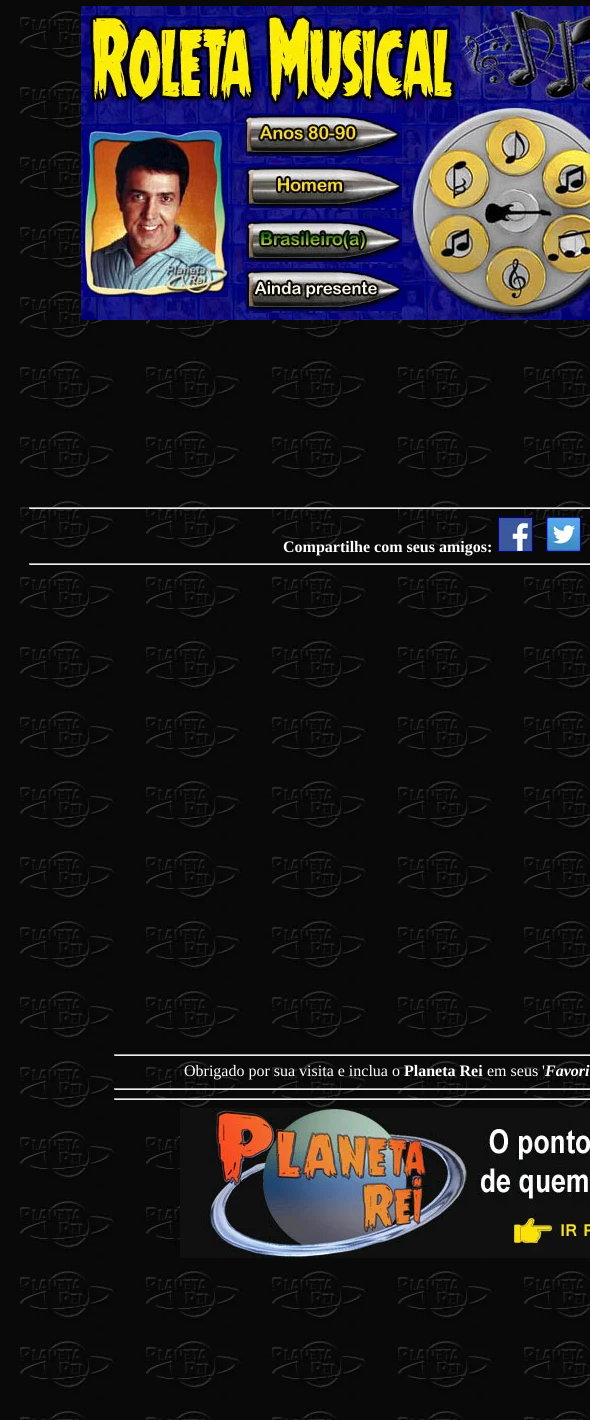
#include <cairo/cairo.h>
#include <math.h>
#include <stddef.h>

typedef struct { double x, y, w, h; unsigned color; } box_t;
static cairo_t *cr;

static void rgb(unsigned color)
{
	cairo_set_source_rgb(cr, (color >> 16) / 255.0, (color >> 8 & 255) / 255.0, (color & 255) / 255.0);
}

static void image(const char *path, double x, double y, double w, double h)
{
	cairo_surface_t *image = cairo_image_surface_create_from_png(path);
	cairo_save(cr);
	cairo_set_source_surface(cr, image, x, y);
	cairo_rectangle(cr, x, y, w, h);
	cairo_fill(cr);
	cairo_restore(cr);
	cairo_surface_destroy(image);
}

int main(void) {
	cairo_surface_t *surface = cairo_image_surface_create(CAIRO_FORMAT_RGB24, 590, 1420);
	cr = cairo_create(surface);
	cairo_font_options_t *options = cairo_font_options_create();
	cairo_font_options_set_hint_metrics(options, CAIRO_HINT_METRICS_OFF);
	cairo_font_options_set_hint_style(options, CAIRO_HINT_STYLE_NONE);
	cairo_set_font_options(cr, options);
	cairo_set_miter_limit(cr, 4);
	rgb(0xffffff);
	cairo_paint(cr);
	image("img/1.png", 0, 0, 590, 1420);
	image("img/2.png", 81, 6, 509, 314);
	{
		static const box_t items[] = {
			{29, 507, 561, 1, 0x9f9f9f},
			{29, 508, 561, 1, 0xeeeeee},
			{29, 507, 1, 2, 0x9f9f9f},
		};
		for (size_t i = 0; i < sizeof items / sizeof *items; i++) {
			rgb(items[i].color);
			cairo_rectangle(cr, items[i].x, items[i].y, items[i].w, items[i].h);
			cairo_fill(cr);
		}
	}
	image("img/3.png", 498, 517, 35, 35);
	image("img/4.png", 546, 517, 35, 35);
	{
		static const box_t items[] = {
			{29, 563, 561, 1, 0x9f9f9f},
			{29, 564, 561, 1, 0xeeeeee},
			{29, 563, 1, 2, 0x9f9f9f},
			{114, 1054, 476, 1, 0x9f9f9f},
			{114, 1055, 476, 1, 0xeeeeee},
			{114, 1054, 1, 2, 0x9f9f9f},
			{114, 1088, 476, 1, 0x9f9f9f},
			{114, 1089, 476, 1, 0xeeeeee},
			{114, 1088, 1, 2, 0x9f9f9f},
			{114, 1098, 476, 1, 0x9f9f9f},
			{114, 1099, 476, 1, 0xeeeeee},
			{114, 1098, 1, 2, 0x9f9f9f},
		};
		for (size_t i = 0; i < sizeof items / sizeof *items; i++) {
			rgb(items[i].color);
			cairo_rectangle(cr, items[i].x, items[i].y, items[i].w, items[i].h);
			cairo_fill(cr);
		}
	}
	image("img/5.png", 180, 1108, 410, 150);
	cairo_select_font_face(cr, "Liberation Serif", CAIRO_FONT_SLANT_NORMAL, CAIRO_FONT_WEIGHT_BOLD);
	cairo_set_font_size(cr, 16);
	rgb(0xffffff);
	cairo_move_to(cr, 283, 552);
	cairo_show_text(cr, "Compartilhe com seus amigos:");
	cairo_select_font_face(cr, "Liberation Serif", CAIRO_FONT_SLANT_NORMAL, CAIRO_FONT_WEIGHT_NORMAL);
	cairo_move_to(cr, 184, 1076);
	cairo_show_text(cr, "Obrigado por sua visita e inclua o");
	cairo_select_font_face(cr, "Liberation Serif", CAIRO_FONT_SLANT_NORMAL, CAIRO_FONT_WEIGHT_BOLD);
	cairo_move_to(cr, 404, 1076);
	cairo_show_text(cr, "Planeta Rei");
	cairo_select_font_face(cr, "Liberation Serif", CAIRO_FONT_SLANT_NORMAL, CAIRO_FONT_WEIGHT_NORMAL);
	cairo_move_to(cr, 487, 1076);
	cairo_show_text(cr, "em seus '");
	cairo_select_font_face(cr, "Liberation Serif", CAIRO_FONT_SLANT_ITALIC, CAIRO_FONT_WEIGHT_BOLD);
	cairo_move_to(cr, 545, 1076);
	cairo_show_text(cr, "Favori");
	cairo_surface_write_to_png(surface, "page.png");
	cairo_font_options_destroy(options);
	cairo_destroy(cr);
	cairo_surface_destroy(surface);
	return 0;
}
